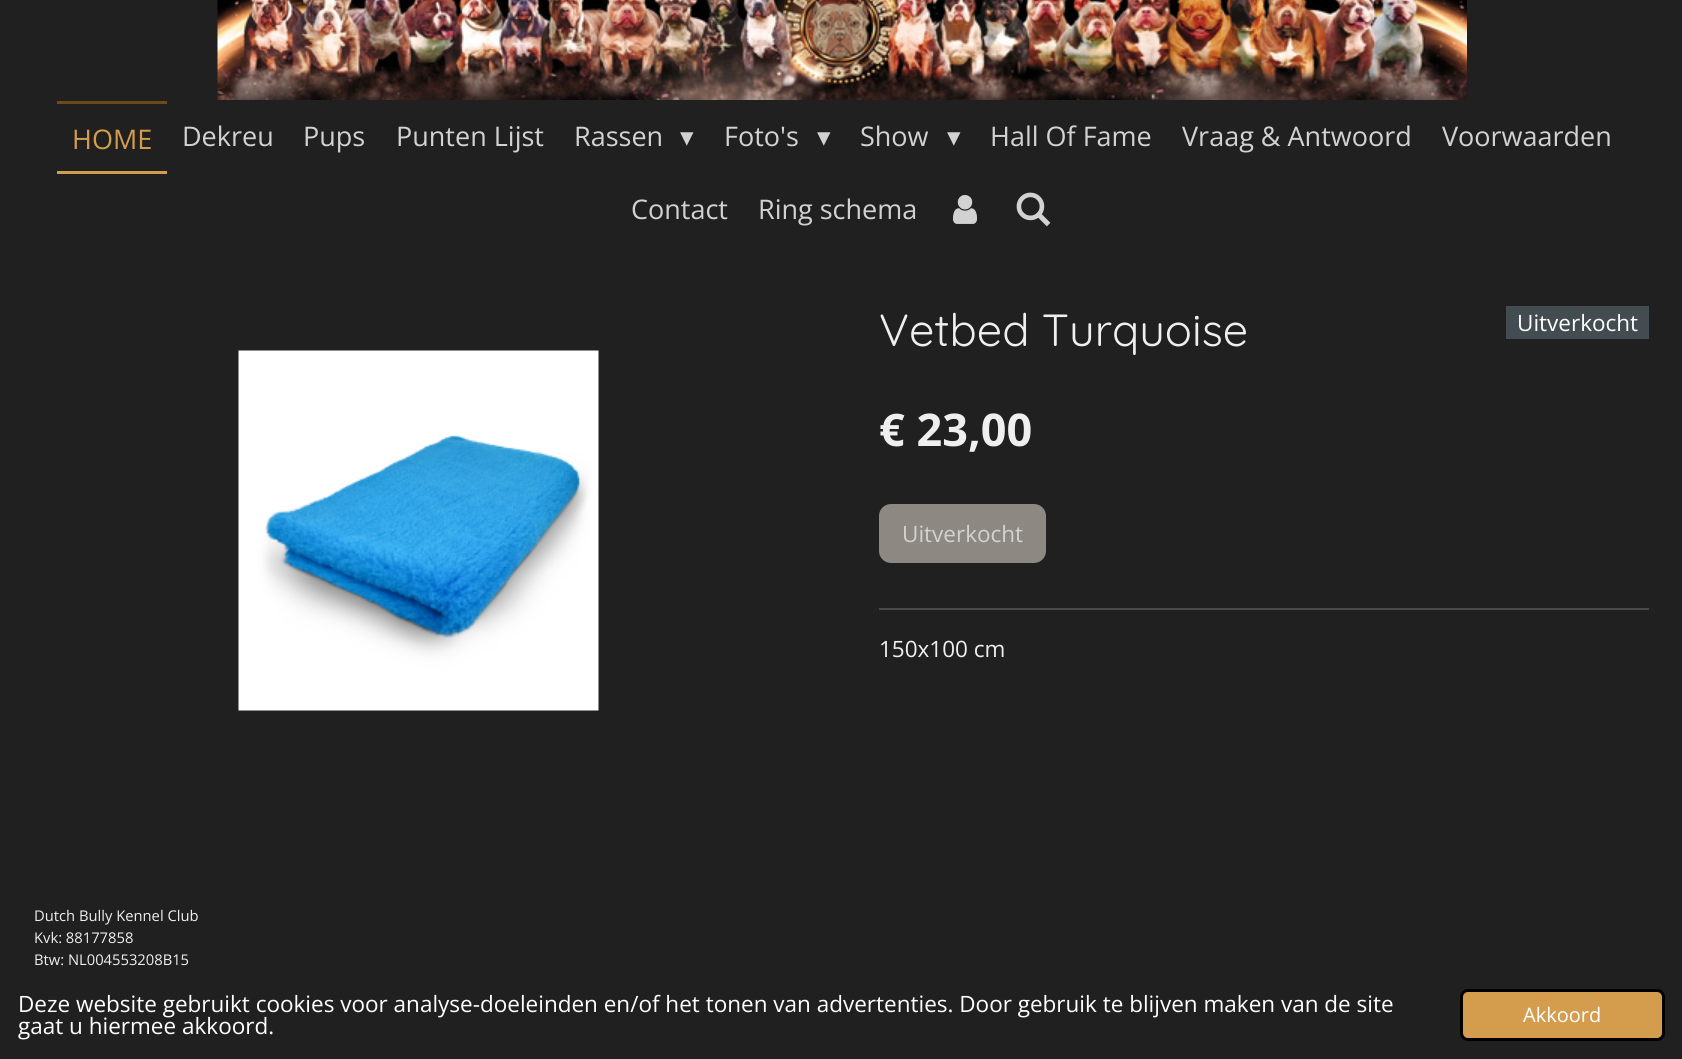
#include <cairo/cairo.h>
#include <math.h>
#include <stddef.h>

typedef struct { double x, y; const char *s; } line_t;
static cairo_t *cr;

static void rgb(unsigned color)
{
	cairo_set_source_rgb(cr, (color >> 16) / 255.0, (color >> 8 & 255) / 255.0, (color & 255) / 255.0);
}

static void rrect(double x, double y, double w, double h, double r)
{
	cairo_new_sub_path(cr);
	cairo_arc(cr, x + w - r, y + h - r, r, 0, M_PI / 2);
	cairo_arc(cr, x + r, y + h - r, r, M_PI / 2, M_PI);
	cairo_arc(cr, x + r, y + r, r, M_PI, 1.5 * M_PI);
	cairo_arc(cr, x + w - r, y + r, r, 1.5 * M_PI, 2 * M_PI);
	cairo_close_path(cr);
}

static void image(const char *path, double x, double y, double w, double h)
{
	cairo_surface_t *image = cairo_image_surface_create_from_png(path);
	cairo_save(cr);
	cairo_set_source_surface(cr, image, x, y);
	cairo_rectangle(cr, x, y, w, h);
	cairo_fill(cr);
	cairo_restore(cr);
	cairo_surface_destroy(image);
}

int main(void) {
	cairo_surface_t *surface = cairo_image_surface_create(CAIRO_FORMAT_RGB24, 1682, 1059);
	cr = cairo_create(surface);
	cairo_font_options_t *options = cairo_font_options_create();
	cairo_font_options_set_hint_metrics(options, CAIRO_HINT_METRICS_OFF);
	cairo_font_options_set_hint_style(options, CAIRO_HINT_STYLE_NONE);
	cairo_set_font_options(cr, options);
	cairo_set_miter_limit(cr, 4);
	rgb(0x202020);
	cairo_paint(cr);
	image("img/1.png", 217, 0, 1250, 100);
	rgb(0x6c4b1b);
	cairo_rectangle(cr, 57, 101, 110, 3);
	cairo_fill(cr);
	rgb(0xd39d4d);
	cairo_rectangle(cr, 57, 171, 110, 3);
	cairo_fill(cr);
	image("img/2.png", 952, 195, 26, 29);
	image("img/3.png", 1016, 192, 35, 35);
	rgb(0x424c51);
	cairo_rectangle(cr, 1506, 306, 143, 33);
	cairo_fill(cr);
	image("img/4.png", 238, 350, 361, 361);
	rgb(0x8d8882);
	rrect(879, 504, 167, 59, 12);
	cairo_fill(cr);
	rgb(0x494949);
	cairo_rectangle(cr, 879, 608, 770, 2);
	cairo_fill(cr);
	rgb(0xd39d4d);
	rrect(1461.5, 990.5, 202, 49, 6.5);
	cairo_fill_preserve(cr);
	rgb(0x000000);
	cairo_set_line_width(cr, 3);
	cairo_stroke(cr);
	cairo_select_font_face(cr, "Open Sans", CAIRO_FONT_SLANT_NORMAL, CAIRO_FONT_WEIGHT_NORMAL);
	cairo_set_font_size(cr, 27);
	rgb(0xd39d4d);
	cairo_move_to(cr, 72, 149);
	cairo_show_text(cr, "HOME");
	rgb(0xd2d2d2);
	{
		static const line_t items[] = {
			{182, 146, "Dekreu"},
			{303, 146, "Pups"},
			{396, 146, "Punten Lijst"},
			{574, 146, "Rassen"},
		};
		for (size_t i = 0; i < sizeof items / sizeof *items; i++) {
			cairo_move_to(cr, items[i].x, items[i].y);
			cairo_show_text(cr, items[i].s);
		}
	}
	cairo_select_font_face(cr, "DejaVu Sans", CAIRO_FONT_SLANT_NORMAL, CAIRO_FONT_WEIGHT_NORMAL);
	cairo_move_to(cr, 680, 146);
	cairo_show_text(cr, "▾");
	cairo_select_font_face(cr, "Open Sans", CAIRO_FONT_SLANT_NORMAL, CAIRO_FONT_WEIGHT_NORMAL);
	cairo_move_to(cr, 724, 146);
	cairo_show_text(cr, "Foto's");
	cairo_select_font_face(cr, "DejaVu Sans", CAIRO_FONT_SLANT_NORMAL, CAIRO_FONT_WEIGHT_NORMAL);
	cairo_move_to(cr, 817, 146);
	cairo_show_text(cr, "▾");
	cairo_select_font_face(cr, "Open Sans", CAIRO_FONT_SLANT_NORMAL, CAIRO_FONT_WEIGHT_NORMAL);
	cairo_move_to(cr, 860, 146);
	cairo_show_text(cr, "Show");
	cairo_select_font_face(cr, "DejaVu Sans", CAIRO_FONT_SLANT_NORMAL, CAIRO_FONT_WEIGHT_NORMAL);
	cairo_move_to(cr, 947, 146);
	cairo_show_text(cr, "▾");
	cairo_select_font_face(cr, "Open Sans", CAIRO_FONT_SLANT_NORMAL, CAIRO_FONT_WEIGHT_NORMAL);
	{
		static const line_t items[] = {
			{990, 146, "Hall Of Fame"},
			{1182, 146, "Vraag & Antwoord"},
			{1442, 146, "Voorwaarden"},
			{631, 219, "Contact"},
			{758, 219, "Ring schema"},
		};
		for (size_t i = 0; i < sizeof items / sizeof *items; i++) {
			cairo_move_to(cr, items[i].x, items[i].y);
			cairo_show_text(cr, items[i].s);
		}
	}
	cairo_select_font_face(cr, "Quicksand", CAIRO_FONT_SLANT_NORMAL, CAIRO_FONT_WEIGHT_NORMAL);
	cairo_set_font_size(cr, 45);
	rgb(0xefefef);
	cairo_move_to(cr, 879, 346);
	cairo_show_text(cr, "Vetbed Turquoise");
	cairo_select_font_face(cr, "Open Sans", CAIRO_FONT_SLANT_NORMAL, CAIRO_FONT_WEIGHT_NORMAL);
	cairo_set_font_size(cr, 22.5);
	rgb(0xffffff);
	cairo_move_to(cr, 1517, 331);
	cairo_show_text(cr, "Uitverkocht");
	cairo_select_font_face(cr, "Open Sans", CAIRO_FONT_SLANT_NORMAL, CAIRO_FONT_WEIGHT_BOLD);
	cairo_set_font_size(cr, 45);
	rgb(0xefefef);
	cairo_move_to(cr, 879, 446);
	cairo_show_text(cr, "€ 23,00");
	cairo_select_font_face(cr, "Open Sans", CAIRO_FONT_SLANT_NORMAL, CAIRO_FONT_WEIGHT_NORMAL);
	cairo_set_font_size(cr, 22.5);
	rgb(0xd2d2d2);
	cairo_move_to(cr, 902, 542);
	cairo_show_text(cr, "Uitverkocht");
	rgb(0xefefef);
	cairo_move_to(cr, 879, 657);
	cairo_show_text(cr, "150x100 cm");
	cairo_set_font_size(cr, 14.75);
	{
		static const line_t items[] = {
			{34, 921, "Dutch Bully Kennel Club"},
			{34, 943, "Kvk: 88177858"},
			{34, 965, "Btw: NL004553208B15"},
		};
		for (size_t i = 0; i < sizeof items / sizeof *items; i++) {
			cairo_move_to(cr, items[i].x, items[i].y);
			cairo_show_text(cr, items[i].s);
		}
	}
	cairo_set_font_size(cr, 22.5);
	rgb(0xffffff);
	cairo_move_to(cr, 18, 1012);
	cairo_show_text(cr, "Deze website gebruikt cookies voor analyse-doeleinden en/of het tonen van advertenties. Door gebruik te blijven maken van de site");
	cairo_move_to(cr, 18, 1034);
	cairo_show_text(cr, "gaat u hiermee akkoord.");
	cairo_set_font_size(cr, 20);
	cairo_move_to(cr, 1523, 1022);
	cairo_show_text(cr, "Akkoord");
	cairo_surface_write_to_png(surface, "page.png");
	cairo_font_options_destroy(options);
	cairo_destroy(cr);
	cairo_surface_destroy(surface);
	return 0;
}
